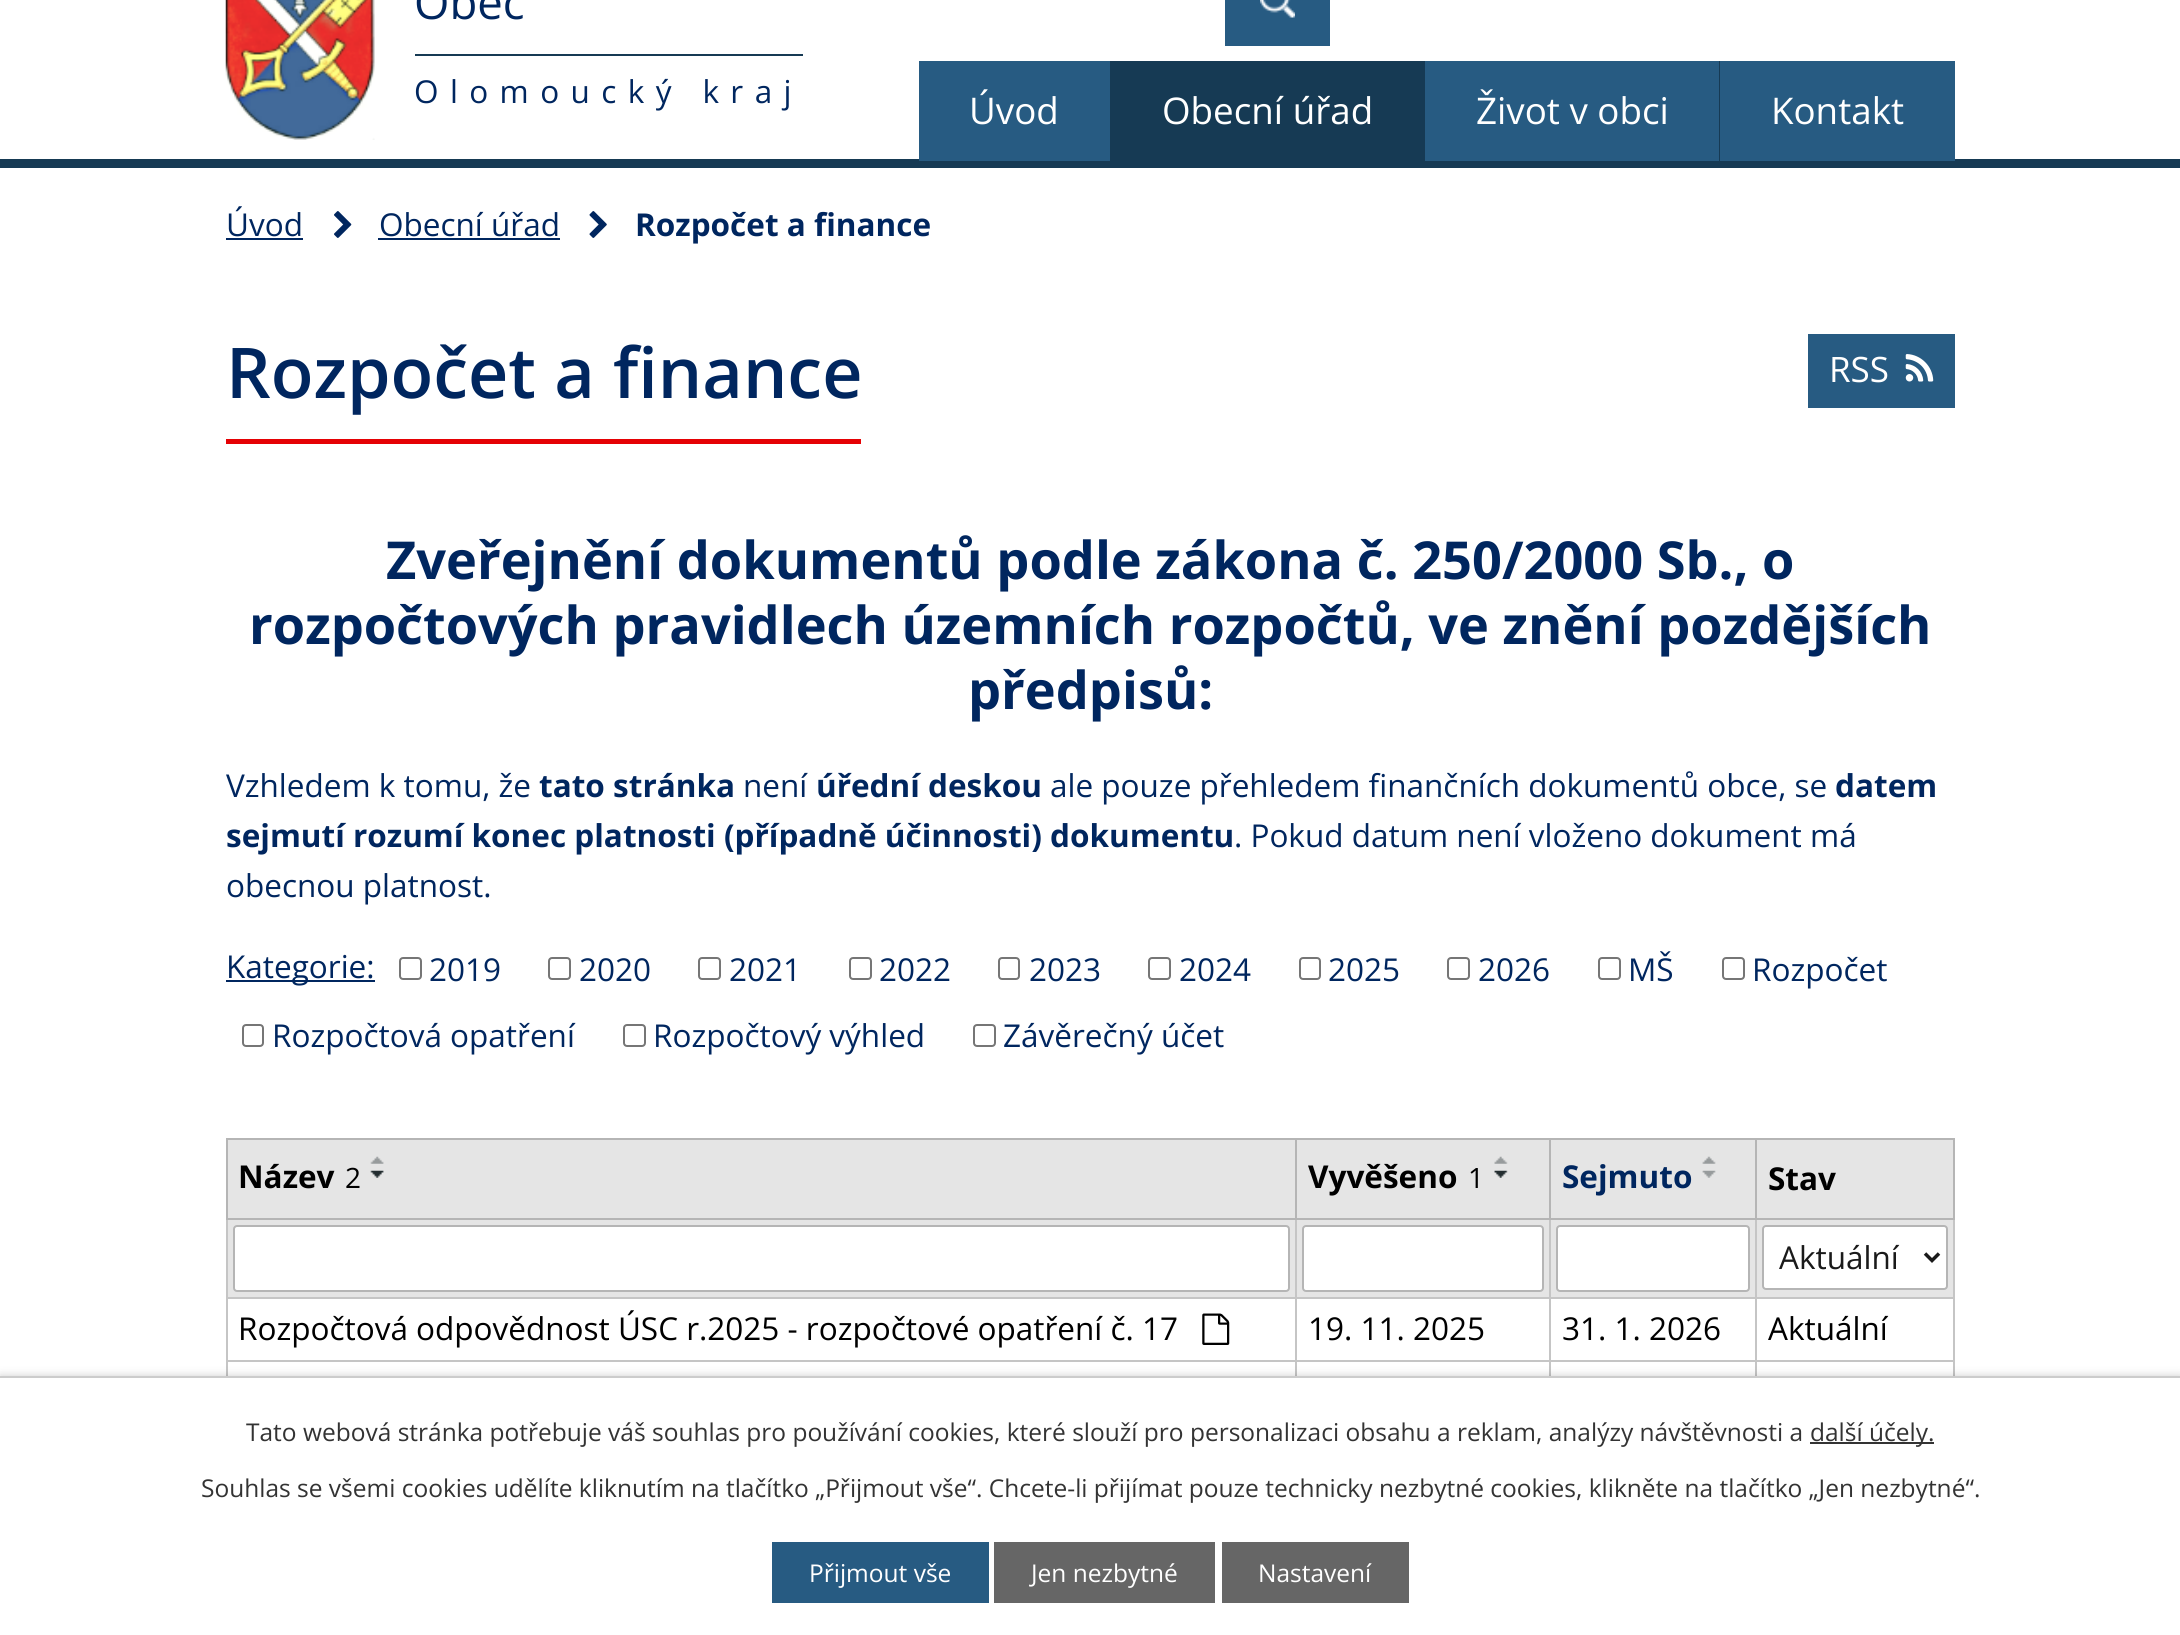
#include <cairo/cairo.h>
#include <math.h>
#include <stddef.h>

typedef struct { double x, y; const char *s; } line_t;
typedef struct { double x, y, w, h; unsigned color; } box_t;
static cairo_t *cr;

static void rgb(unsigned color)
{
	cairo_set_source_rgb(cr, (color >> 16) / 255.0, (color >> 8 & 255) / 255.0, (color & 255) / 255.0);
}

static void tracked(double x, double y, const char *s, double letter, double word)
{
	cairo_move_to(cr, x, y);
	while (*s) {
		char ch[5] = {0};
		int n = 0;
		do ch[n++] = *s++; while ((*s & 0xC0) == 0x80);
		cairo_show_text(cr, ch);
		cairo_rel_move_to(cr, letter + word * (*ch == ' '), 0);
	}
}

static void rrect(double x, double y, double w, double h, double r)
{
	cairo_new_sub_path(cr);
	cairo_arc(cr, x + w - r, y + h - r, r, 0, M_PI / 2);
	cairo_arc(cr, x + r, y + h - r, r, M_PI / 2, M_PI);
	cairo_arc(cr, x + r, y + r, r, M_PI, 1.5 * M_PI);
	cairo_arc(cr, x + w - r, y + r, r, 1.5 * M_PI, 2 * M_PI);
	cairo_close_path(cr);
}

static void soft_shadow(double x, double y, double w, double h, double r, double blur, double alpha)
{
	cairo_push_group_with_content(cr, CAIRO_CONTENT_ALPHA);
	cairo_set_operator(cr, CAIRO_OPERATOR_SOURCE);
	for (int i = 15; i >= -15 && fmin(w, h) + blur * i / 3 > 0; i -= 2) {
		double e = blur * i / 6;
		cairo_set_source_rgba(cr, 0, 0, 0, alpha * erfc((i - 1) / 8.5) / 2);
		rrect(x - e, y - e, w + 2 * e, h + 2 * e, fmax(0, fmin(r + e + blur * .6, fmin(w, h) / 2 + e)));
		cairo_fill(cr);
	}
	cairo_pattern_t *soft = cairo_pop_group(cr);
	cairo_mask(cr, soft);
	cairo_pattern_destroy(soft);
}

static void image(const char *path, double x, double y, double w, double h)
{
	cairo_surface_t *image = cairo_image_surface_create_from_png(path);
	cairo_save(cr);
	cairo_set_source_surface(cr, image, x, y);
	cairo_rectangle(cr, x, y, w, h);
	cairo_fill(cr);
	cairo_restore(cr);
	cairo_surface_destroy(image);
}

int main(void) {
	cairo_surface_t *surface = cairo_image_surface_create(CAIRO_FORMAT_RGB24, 2180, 1635);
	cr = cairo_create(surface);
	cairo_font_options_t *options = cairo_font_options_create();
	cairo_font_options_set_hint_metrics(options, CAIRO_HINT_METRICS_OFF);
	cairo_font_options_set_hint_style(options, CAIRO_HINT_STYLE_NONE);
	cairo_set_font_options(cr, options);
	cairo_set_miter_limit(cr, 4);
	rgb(0xffffff);
	cairo_paint(cr);
	rgb(0x163a54);
	cairo_rectangle(cr, 0, 159, 2180, 9);
	cairo_fill(cr);
	image("img/1.png", 225, 0, 150, 140);
	cairo_rectangle(cr, 415, 54, 388, 2);
	cairo_fill(cr);
	rgb(0x275b82);
	cairo_rectangle(cr, 1225, 0, 105, 46);
	cairo_fill(cr);
	image("img/2.png", 1260, 0, 35, 18);
	{
		static const box_t items[] = {
			{919, 61, 191, 100, 0x275b82},
			{1110, 61, 1, 100, 0x163a54},
			{1111, 61, 312, 98, 0x163a54},
			{1423, 61, 2, 100, 0x163a54},
			{1425, 61, 294, 100, 0x275b82},
			{1719, 61, 1, 100, 0x163a54},
			{1720, 61, 235, 100, 0x275b82},
			{226, 238, 77, 2, 0x00265f},
		};
		for (size_t i = 0; i < sizeof items / sizeof *items; i++) {
			rgb(items[i].color);
			cairo_rectangle(cr, items[i].x, items[i].y, items[i].w, items[i].h);
			cairo_fill(cr);
		}
	}
	image("img/3.png", 334, 211, 18, 27);
	cairo_rectangle(cr, 378, 238, 182, 2);
	cairo_fill(cr);
	image("img/4.png", 589, 211, 18, 27);
	rgb(0xe50104);
	cairo_rectangle(cr, 226, 439, 635, 5);
	cairo_fill(cr);
	rgb(0x275b82);
	cairo_rectangle(cr, 1808, 334, 147, 74);
	cairo_fill(cr);
	image("img/5.png", 1905, 354, 29, 28);
	rgb(0x00265f);
	cairo_rectangle(cr, 226, 980, 149, 2);
	cairo_fill(cr);
	rrect(400, 958, 21, 21, 3);
	rgb(0x767676);
	cairo_stroke(cr);
	rrect(549, 958, 21, 21, 3);
	cairo_stroke(cr);
	rrect(699, 958, 21, 21, 3);
	cairo_stroke(cr);
	rrect(850, 958, 21, 21, 3);
	cairo_stroke(cr);
	rrect(999, 958, 20, 21, 3);
	cairo_stroke(cr);
	rrect(1149, 958, 21, 21, 3);
	cairo_stroke(cr);
	rrect(1300, 958, 20, 21, 3);
	cairo_stroke(cr);
	rrect(1448, 958, 21, 21, 3);
	cairo_stroke(cr);
	rrect(1599, 958, 21, 21, 3);
	cairo_stroke(cr);
	rrect(1723, 958, 21, 21, 3);
	cairo_stroke(cr);
	rrect(243, 1025, 20, 21, 3);
	cairo_stroke(cr);
	rrect(624, 1025, 21, 21, 3);
	cairo_stroke(cr);
	rrect(974, 1025, 21, 21, 3);
	cairo_stroke(cr);
	{
		static const box_t items[] = {
			{228, 1140, 1067, 78, 0xe5e5e5},
			{1755, 1138, 200, 2, 0xb5b5b5},
			{1755, 1297, 200, 2, 0xc5c5c5},
			{1755, 1360, 200, 2, 0xc5c5c5},
			{1953, 1360, 2, 16, 0xc5c5c5},
			{1953, 1218, 2, 144, 0xc5c5c5},
			{1953, 1138, 2, 82, 0xb5b5b5},
			{228, 1220, 1725, 77, 0xe5e5e5},
			{1755, 1360, 2, 16, 0xc5c5c5},
			{1549, 1360, 208, 2, 0xc5c5c5},
			{1755, 1297, 2, 65, 0xc5c5c5},
			{1549, 1297, 208, 2, 0xc5c5c5},
			{1755, 1218, 2, 81, 0xc5c5c5},
			{1755, 1218, 200, 2, 0xb5b5b5},
			{1755, 1138, 2, 82, 0xb5b5b5},
			{1549, 1138, 208, 2, 0xb5b5b5},
			{1549, 1360, 2, 16, 0xc5c5c5},
			{1295, 1360, 256, 2, 0xc5c5c5},
			{1549, 1297, 2, 65, 0xc5c5c5},
			{1295, 1297, 256, 2, 0xc5c5c5},
			{1549, 1218, 2, 81, 0xc5c5c5},
			{1549, 1218, 208, 2, 0xb5b5b5},
			{1549, 1138, 2, 82, 0xb5b5b5},
			{1295, 1138, 256, 2, 0xb5b5b5},
			{1295, 1360, 2, 16, 0xc5c5c5},
			{226, 1360, 1071, 2, 0xc5c5c5},
			{1295, 1297, 2, 65, 0xc5c5c5},
			{226, 1297, 1071, 2, 0xc5c5c5},
			{1295, 1218, 2, 81, 0xc5c5c5},
			{1295, 1218, 256, 2, 0xb5b5b5},
			{1295, 1138, 2, 82, 0xb5b5b5},
			{226, 1138, 1071, 2, 0xb5b5b5},
			{226, 1360, 2, 16, 0xc5c5c5},
			{226, 1218, 2, 144, 0xc5c5c5},
			{226, 1218, 1071, 2, 0xb5b5b5},
			{226, 1138, 2, 82, 0xb5b5b5},
		};
		for (size_t i = 0; i < sizeof items / sizeof *items; i++) {
			rgb(items[i].color);
			cairo_rectangle(cr, items[i].x, items[i].y, items[i].w, items[i].h);
			cairo_fill(cr);
		}
	}
	image("img/6.png", 370, 1156, 14, 8);
	image("img/7.png", 370, 1170, 14, 8);
	rgb(0xe5e5e5);
	cairo_rectangle(cr, 1297, 1140, 252, 78);
	cairo_fill(cr);
	image("img/8.png", 1494, 1156, 14, 8);
	image("img/9.png", 1494, 1170, 14, 8);
	cairo_rectangle(cr, 1551, 1140, 204, 78);
	cairo_fill(cr);
	image("img/10.png", 1702, 1156, 14, 8);
	image("img/11.png", 1702, 1170, 14, 8);
	cairo_rectangle(cr, 1757, 1140, 196, 78);
	cairo_fill(cr);
	rgb(0xffffff);
	rrect(234, 1226, 1055, 65, 3);
	cairo_fill_preserve(cr);
	rgb(0xb5b5b5);
	cairo_stroke(cr);
	rgb(0xffffff);
	rrect(1303, 1226, 240, 65, 3);
	cairo_fill_preserve(cr);
	rgb(0xb5b5b5);
	cairo_stroke(cr);
	rgb(0xffffff);
	rrect(1557, 1226, 192, 65, 3);
	cairo_fill_preserve(cr);
	rgb(0xb5b5b5);
	cairo_stroke(cr);
	rgb(0xffffff);
	rrect(1763, 1226, 184, 63, 3);
	cairo_fill_preserve(cr);
	rgb(0xb5b5b5);
	cairo_stroke(cr);
	cairo_new_path(cr);
	cairo_move_to(cr, 1925, 1253.5);
	cairo_line_to(cr, 1932, 1260.5);
	cairo_line_to(cr, 1939, 1253.5);
	rgb(0x1a1a1a);
	cairo_set_line_width(cr, 3.5);
	cairo_stroke(cr);
	image("img/12.png", 1202, 1313, 28, 32);
	rgb(0x000000);
	soft_shadow(0, 1376, 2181, 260, 0, 4.5, 0.2);
	{
		static const box_t items[] = {
			{0, 1378, 2180, 257, 0xffffff},
			{0, 1376, 2180, 2, 0xcccccc},
			{1810, 1442, 124, 2, 0x333333},
			{772, 1542, 217, 61, 0x275b82},
			{994, 1542, 221, 61, 0x666666},
			{1222, 1542, 187, 61, 0x666666},
		};
		for (size_t i = 0; i < sizeof items / sizeof *items; i++) {
			rgb(items[i].color);
			cairo_rectangle(cr, items[i].x, items[i].y, items[i].w, items[i].h);
			cairo_fill(cr);
		}
	}
	cairo_select_font_face(cr, "Open Sans", CAIRO_FONT_SLANT_NORMAL, CAIRO_FONT_WEIGHT_NORMAL);
	cairo_set_font_size(cr, 45.5);
	rgb(0x00265f);
	cairo_move_to(cr, 414, 19);
	cairo_show_text(cr, "Obec");
	cairo_set_font_size(cr, 31.5);
	tracked(414, 103, "Olomoucký kraj", 11.4, 0);
	cairo_set_font_size(cr, 36.75);
	rgb(0xffffff);
	{
		static const line_t items[] = {
			{969, 124, "Úvod"},
			{1162, 124, "Obecní úřad"},
			{1476, 124, "Život v obci"},
			{1771, 124, "Kontakt"},
		};
		for (size_t i = 0; i < sizeof items / sizeof *items; i++) {
			cairo_move_to(cr, items[i].x, items[i].y);
			cairo_show_text(cr, items[i].s);
		}
	}
	cairo_set_font_size(cr, 31.5);
	rgb(0x00265f);
	cairo_move_to(cr, 226, 236);
	cairo_show_text(cr, "Úvod");
	cairo_move_to(cr, 379, 236);
	cairo_show_text(cr, "Obecní úřad");
	cairo_select_font_face(cr, "Open Sans", CAIRO_FONT_SLANT_NORMAL, CAIRO_FONT_WEIGHT_BOLD);
	cairo_move_to(cr, 635, 236);
	cairo_show_text(cr, "Rozpočet a finance");
	cairo_select_font_face(cr, "Open Sans SemiBold", CAIRO_FONT_SLANT_NORMAL, CAIRO_FONT_WEIGHT_NORMAL);
	cairo_set_font_size(cr, 70);
	cairo_move_to(cr, 226, 398);
	cairo_show_text(cr, "Rozpočet a finance");
	cairo_select_font_face(cr, "Open Sans", CAIRO_FONT_SLANT_NORMAL, CAIRO_FONT_WEIGHT_NORMAL);
	cairo_set_font_size(cr, 35);
	rgb(0xffffff);
	cairo_move_to(cr, 1829, 382);
	cairo_show_text(cr, "RSS");
	cairo_select_font_face(cr, "Open Sans", CAIRO_FONT_SLANT_NORMAL, CAIRO_FONT_WEIGHT_BOLD);
	cairo_set_font_size(cr, 52.3);
	rgb(0x00265f);
	{
		static const line_t items[] = {
			{386, 579, "Zveřejnění dokumentů podle zákona č. 250/2000 Sb., o"},
			{249, 644, "rozpočtových pravidlech územních rozpočtů, ve znění pozdějších"},
			{968, 709, "předpisů:"},
		};
		for (size_t i = 0; i < sizeof items / sizeof *items; i++) {
			cairo_move_to(cr, items[i].x, items[i].y);
			cairo_show_text(cr, items[i].s);
		}
	}
	cairo_select_font_face(cr, "Open Sans", CAIRO_FONT_SLANT_NORMAL, CAIRO_FONT_WEIGHT_NORMAL);
	cairo_set_font_size(cr, 31.5);
	cairo_move_to(cr, 226, 797);
	cairo_show_text(cr, "Vzhledem k tomu, že");
	cairo_select_font_face(cr, "Open Sans", CAIRO_FONT_SLANT_NORMAL, CAIRO_FONT_WEIGHT_BOLD);
	cairo_move_to(cr, 539, 797);
	cairo_show_text(cr, "tato stránka");
	cairo_select_font_face(cr, "Open Sans", CAIRO_FONT_SLANT_NORMAL, CAIRO_FONT_WEIGHT_NORMAL);
	cairo_move_to(cr, 743, 797);
	cairo_show_text(cr, "není");
	cairo_select_font_face(cr, "Open Sans", CAIRO_FONT_SLANT_NORMAL, CAIRO_FONT_WEIGHT_BOLD);
	cairo_move_to(cr, 816, 797);
	cairo_show_text(cr, "úřední deskou");
	cairo_select_font_face(cr, "Open Sans", CAIRO_FONT_SLANT_NORMAL, CAIRO_FONT_WEIGHT_NORMAL);
	cairo_move_to(cr, 1050, 797);
	cairo_show_text(cr, "ale pouze přehledem finančních dokumentů obce, se");
	cairo_select_font_face(cr, "Open Sans", CAIRO_FONT_SLANT_NORMAL, CAIRO_FONT_WEIGHT_BOLD);
	cairo_move_to(cr, 1835, 797);
	cairo_show_text(cr, "datem");
	cairo_move_to(cr, 226, 847);
	cairo_show_text(cr, "sejmutí rozumí konec platnosti (případně účinnosti) dokumentu");
	cairo_select_font_face(cr, "Open Sans", CAIRO_FONT_SLANT_NORMAL, CAIRO_FONT_WEIGHT_NORMAL);
	{
		static const line_t items[] = {
			{1234, 847, ". Pokud datum není vloženo dokument má"},
			{226, 897, "obecnou platnost."},
			{226, 978, "Kategorie:"},
			{429, 981, "2019"},
			{579, 981, "2020"},
			{729, 981, "2021"},
			{879, 981, "2022"},
			{1029, 981, "2023"},
			{1179, 981, "2024"},
			{1328, 981, "2025"},
			{1478, 981, "2026"},
			{1628, 981, "MŠ"},
			{1752, 981, "Rozpočet"},
			{272, 1047, "Rozpočtová opatření"},
			{653, 1047, "Rozpočtový výhled"},
			{1003, 1047, "Závěrečný účet"},
		};
		for (size_t i = 0; i < sizeof items / sizeof *items; i++) {
			cairo_move_to(cr, items[i].x, items[i].y);
			cairo_show_text(cr, items[i].s);
		}
	}
	cairo_select_font_face(cr, "Open Sans", CAIRO_FONT_SLANT_NORMAL, CAIRO_FONT_WEIGHT_BOLD);
	rgb(0x000000);
	cairo_move_to(cr, 238, 1188);
	cairo_show_text(cr, "Název");
	cairo_select_font_face(cr, "Open Sans", CAIRO_FONT_SLANT_NORMAL, CAIRO_FONT_WEIGHT_NORMAL);
	cairo_set_font_size(cr, 28);
	cairo_move_to(cr, 345, 1188);
	cairo_show_text(cr, "2");
	cairo_select_font_face(cr, "Open Sans", CAIRO_FONT_SLANT_NORMAL, CAIRO_FONT_WEIGHT_BOLD);
	cairo_set_font_size(cr, 31.5);
	cairo_move_to(cr, 1308, 1188);
	cairo_show_text(cr, "Vyvěšeno");
	cairo_select_font_face(cr, "Open Sans", CAIRO_FONT_SLANT_NORMAL, CAIRO_FONT_WEIGHT_NORMAL);
	cairo_set_font_size(cr, 28);
	cairo_move_to(cr, 1468, 1188);
	cairo_show_text(cr, "1");
	cairo_select_font_face(cr, "Open Sans", CAIRO_FONT_SLANT_NORMAL, CAIRO_FONT_WEIGHT_BOLD);
	cairo_set_font_size(cr, 31.5);
	rgb(0x00265f);
	cairo_move_to(cr, 1562, 1188);
	cairo_show_text(cr, "Sejmuto");
	rgb(0x000000);
	cairo_move_to(cr, 1768, 1190);
	cairo_show_text(cr, "Stav");
	cairo_select_font_face(cr, "Open Sans", CAIRO_FONT_SLANT_NORMAL, CAIRO_FONT_WEIGHT_NORMAL);
	rgb(0x1a1a1a);
	cairo_move_to(cr, 1779, 1269);
	cairo_show_text(cr, "Aktuální");
	rgb(0x000000);
	{
		static const line_t items[] = {
			{238, 1340, "Rozpočtová odpovědnost ÚSC r.2025 - rozpočtové opatření č. 17"},
			{1308, 1340, "19. 11. 2025"},
			{1562, 1340, "31. 1. 2026"},
			{1768, 1340, "Aktuální"},
		};
		for (size_t i = 0; i < sizeof items / sizeof *items; i++) {
			cairo_move_to(cr, items[i].x, items[i].y);
			cairo_show_text(cr, items[i].s);
		}
	}
	cairo_set_font_size(cr, 24.5);
	rgb(0x333333);
	{
		static const line_t items[] = {
			{246, 1441, "Tato webová stránka potřebuje váš souhlas pro používání cookies, které slouží pro personalizaci obsahu a reklam, analýzy návštěvnosti a"},
			{1810, 1441, "další účely."},
			{201, 1497, "Souhlas se všemi cookies udělíte kliknutím na tlačítko „Přijmout vše“. Chcete-li přijímat pouze technicky nezbytné cookies, klikněte na tlačítko „Jen nezbytné“."},
		};
		for (size_t i = 0; i < sizeof items / sizeof *items; i++) {
			cairo_move_to(cr, items[i].x, items[i].y);
			cairo_show_text(cr, items[i].s);
		}
	}
	rgb(0xffffff);
	{
		static const line_t items[] = {
			{809, 1582, "Přijmout vše"},
			{1031, 1582, "Jen nezbytné"},
			{1258, 1582, "Nastavení"},
		};
		for (size_t i = 0; i < sizeof items / sizeof *items; i++) {
			cairo_move_to(cr, items[i].x, items[i].y);
			cairo_show_text(cr, items[i].s);
		}
	}
	cairo_surface_write_to_png(surface, "page.png");
	cairo_font_options_destroy(options);
	cairo_destroy(cr);
	cairo_surface_destroy(surface);
	return 0;
}
